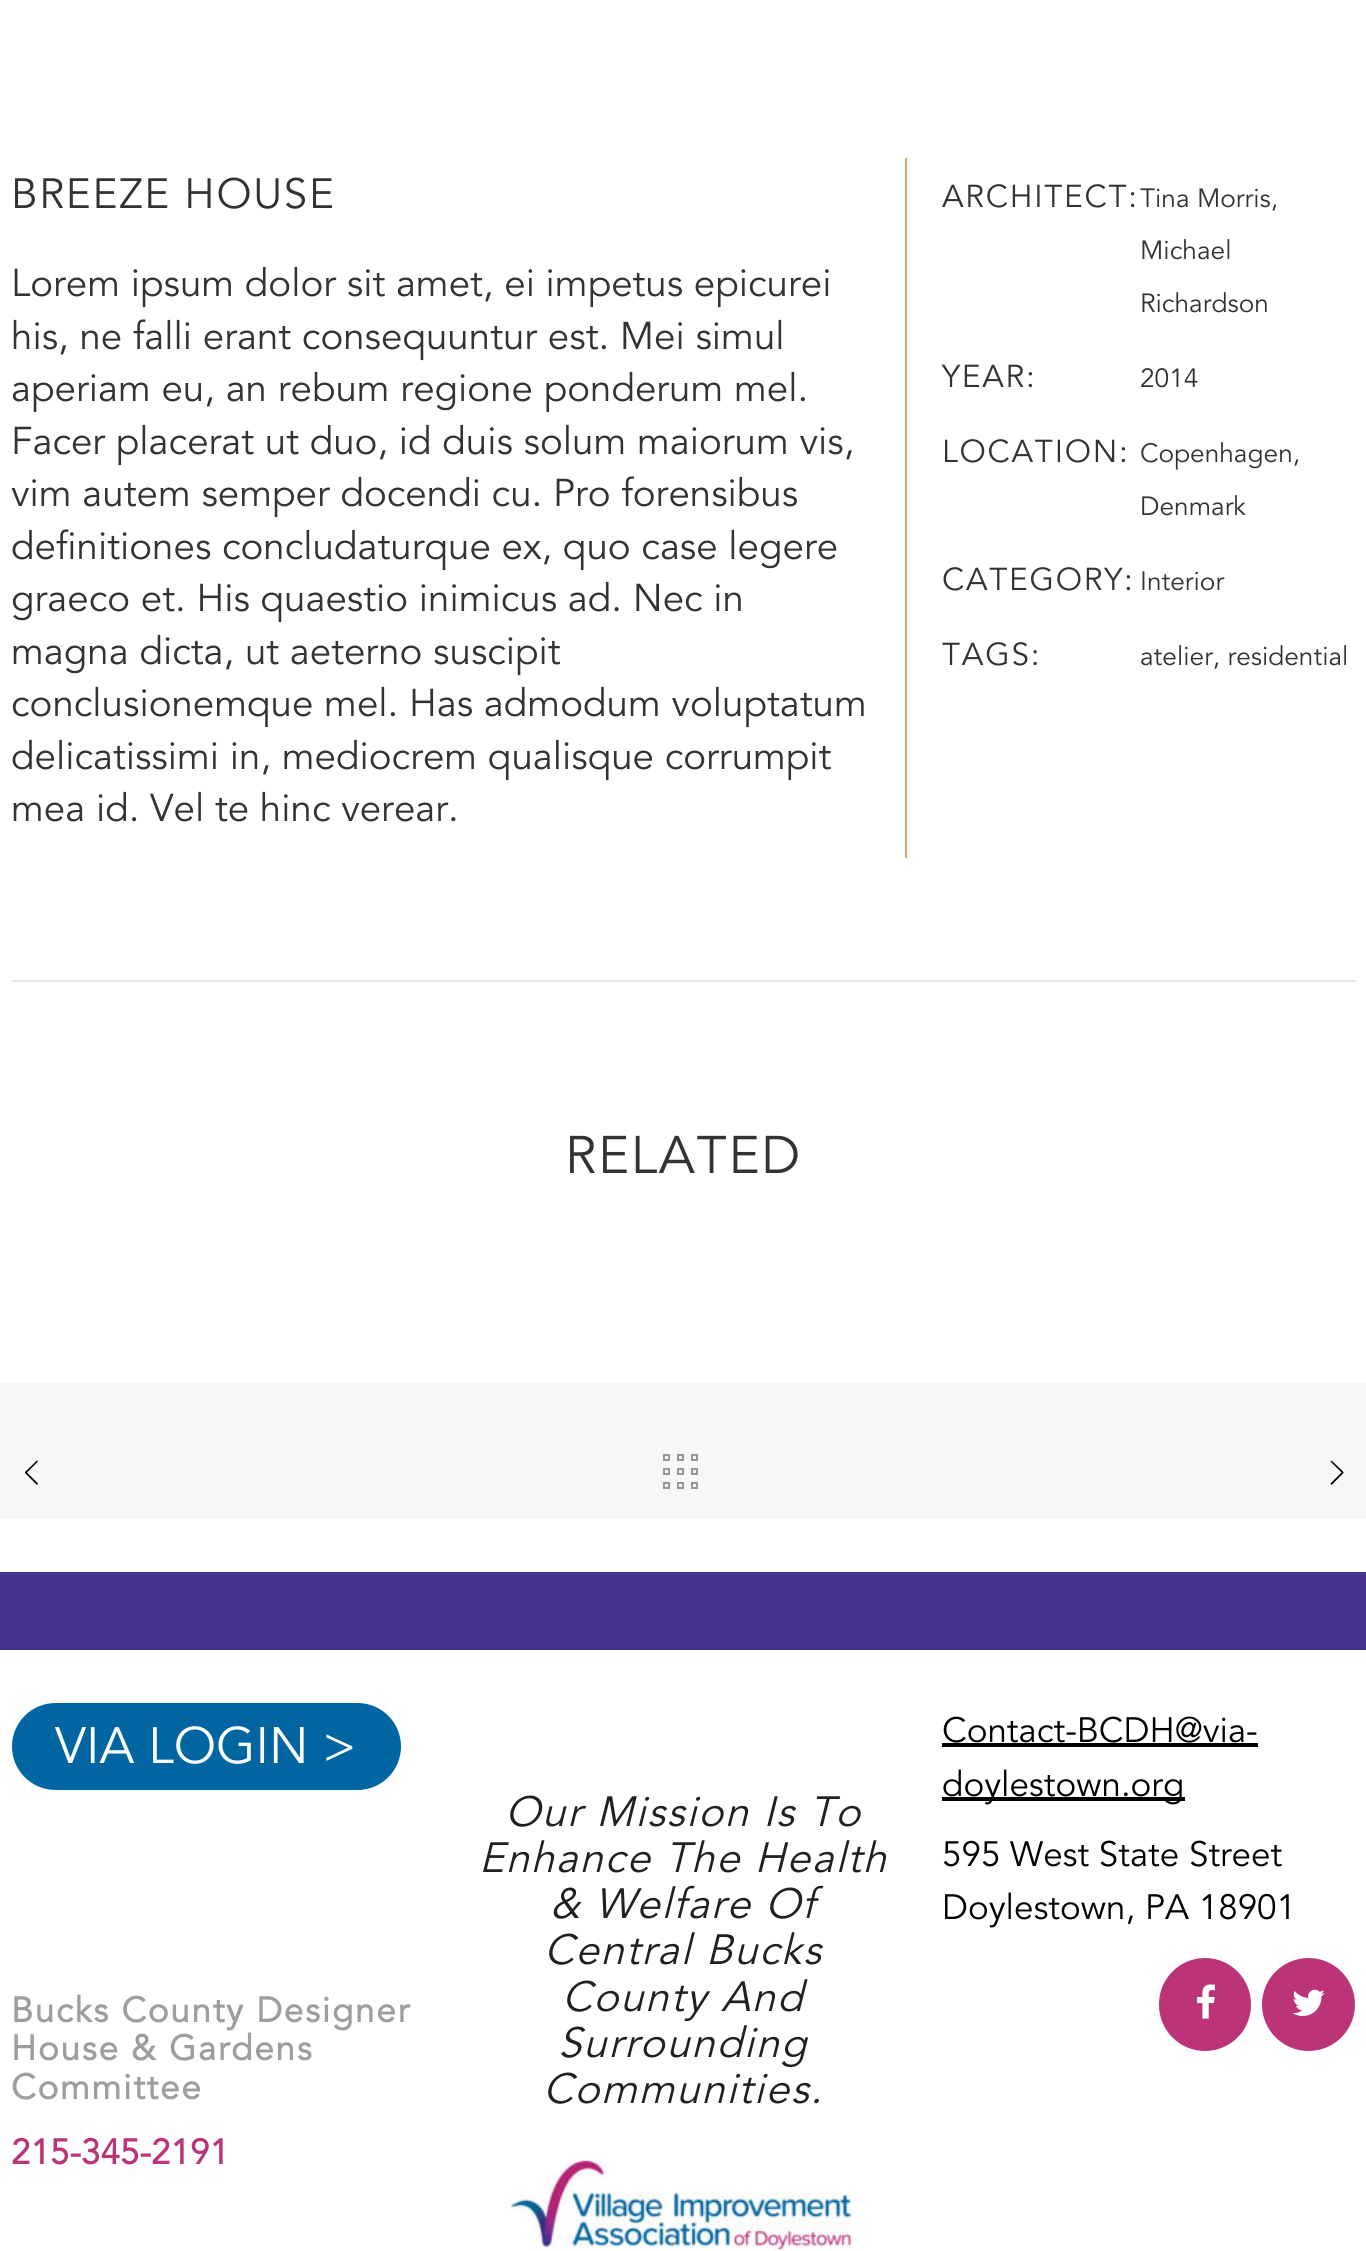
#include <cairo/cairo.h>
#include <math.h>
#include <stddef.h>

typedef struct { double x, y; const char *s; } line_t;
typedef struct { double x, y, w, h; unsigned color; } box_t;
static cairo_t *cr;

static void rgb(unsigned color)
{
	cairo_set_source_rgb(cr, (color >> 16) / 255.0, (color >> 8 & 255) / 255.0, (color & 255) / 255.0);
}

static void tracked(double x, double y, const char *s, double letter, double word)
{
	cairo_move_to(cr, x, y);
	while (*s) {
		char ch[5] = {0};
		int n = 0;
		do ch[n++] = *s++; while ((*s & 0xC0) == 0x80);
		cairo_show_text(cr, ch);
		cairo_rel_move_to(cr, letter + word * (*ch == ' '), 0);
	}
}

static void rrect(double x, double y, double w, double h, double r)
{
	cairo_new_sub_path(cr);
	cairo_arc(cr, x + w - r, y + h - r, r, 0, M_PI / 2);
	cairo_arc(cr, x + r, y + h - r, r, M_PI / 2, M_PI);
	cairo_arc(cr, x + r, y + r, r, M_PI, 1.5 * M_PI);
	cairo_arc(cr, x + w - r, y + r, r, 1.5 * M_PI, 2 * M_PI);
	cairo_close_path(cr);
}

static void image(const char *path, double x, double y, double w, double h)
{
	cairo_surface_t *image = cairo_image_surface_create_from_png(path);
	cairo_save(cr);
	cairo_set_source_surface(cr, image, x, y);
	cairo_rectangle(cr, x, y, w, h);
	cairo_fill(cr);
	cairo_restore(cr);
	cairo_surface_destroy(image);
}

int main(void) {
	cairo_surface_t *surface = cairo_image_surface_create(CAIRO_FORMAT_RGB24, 1366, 2251);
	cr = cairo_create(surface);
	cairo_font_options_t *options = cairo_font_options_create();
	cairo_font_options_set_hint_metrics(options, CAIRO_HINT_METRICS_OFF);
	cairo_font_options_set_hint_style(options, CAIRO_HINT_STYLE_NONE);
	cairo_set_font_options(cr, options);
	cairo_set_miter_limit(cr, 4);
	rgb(0xffffff);
	cairo_paint(cr);
	{
		static const box_t items[] = {
			{905, 158, 2, 700, 0xd6ab60},
			{12, 980, 1344, 2, 0xe4e4e4},
			{0, 1383, 1366, 136, 0xf7f7f7},
		};
		for (size_t i = 0; i < sizeof items / sizeof *items; i++) {
			rgb(items[i].color);
			cairo_rectangle(cr, items[i].x, items[i].y, items[i].w, items[i].h);
			cairo_fill(cr);
		}
	}
	rgb(0x000000);
	cairo_new_path(cr);
	cairo_move_to(cr, 37, 1460.5);
	cairo_line_to(cr, 38, 1461.5);
	cairo_line_to(cr, 27, 1472.5);
	cairo_line_to(cr, 38, 1483.5);
	cairo_line_to(cr, 37, 1485);
	cairo_line_to(cr, 25, 1473);
	cairo_line_to(cr, 25, 1472);
	cairo_close_path(cr);
	cairo_fill(cr);
	cairo_rectangle(cr, 664, 1455, 5, 5);
	rgb(0x989898);
	cairo_stroke(cr);
	cairo_rectangle(cr, 678, 1455, 5, 5);
	cairo_stroke(cr);
	cairo_rectangle(cr, 692, 1455, 5, 5);
	cairo_stroke(cr);
	cairo_rectangle(cr, 664, 1469, 5, 5);
	cairo_stroke(cr);
	cairo_rectangle(cr, 678, 1469, 5, 5);
	cairo_stroke(cr);
	cairo_rectangle(cr, 692, 1469, 5, 5);
	cairo_stroke(cr);
	cairo_rectangle(cr, 664, 1483, 5, 5);
	cairo_stroke(cr);
	cairo_rectangle(cr, 678, 1483, 5, 5);
	cairo_stroke(cr);
	cairo_rectangle(cr, 692, 1483, 5, 5);
	cairo_stroke(cr);
	rgb(0x000000);
	cairo_new_path(cr);
	cairo_move_to(cr, 1343.5, 1472);
	cairo_line_to(cr, 1343.5, 1473);
	cairo_line_to(cr, 1331.5, 1485);
	cairo_line_to(cr, 1330.5, 1483.5);
	cairo_line_to(cr, 1341.5, 1472.5);
	cairo_line_to(cr, 1330.5, 1461.5);
	cairo_line_to(cr, 1331.5, 1460.5);
	cairo_close_path(cr);
	cairo_fill(cr);
	rgb(0x44328c);
	cairo_rectangle(cr, 0, 1572, 1366, 78);
	cairo_fill(cr);
	rgb(0x0065a1);
	rrect(12, 1703, 389, 87, 43.5);
	cairo_fill(cr);
	image("img/1.png", 509, 2159, 344, 92);
	rgb(0x000000);
	cairo_rectangle(cr, 942, 1743, 316, 4);
	cairo_fill(cr);
	cairo_rectangle(cr, 942, 1797, 243, 4);
	cairo_fill(cr);
	rgb(0xbb3477);
	rrect(1159, 1958, 92, 93, 46);
	cairo_fill(cr);
	image("img/2.png", 1197, 1984, 18, 35);
	cairo_arc(cr, 1308.5, 2004.5, 46.5, 0, 2 * M_PI);
	cairo_fill(cr);
	image("img/3.png", 1292, 1989, 33, 27);
	cairo_select_font_face(cr, "Avenir", CAIRO_FONT_SLANT_NORMAL, CAIRO_FONT_WEIGHT_NORMAL);
	cairo_set_font_size(cr, 42);
	rgb(0x333333);
	tracked(11, 208, "BREEZE HOUSE", 1.75, 0);
	cairo_set_font_size(cr, 38.5);
	{
		static const line_t items[] = {
			{11, 296, "Lorem ipsum dolor sit amet, ei impetus epicurei"},
			{11, 349, "his, ne falli erant consequuntur est. Mei simul"},
			{11, 401, "aperiam eu, an rebum regione ponderum mel."},
			{11, 454, "Facer placerat ut duo, id duis solum maiorum vis,"},
			{11, 506, "vim autem semper docendi cu. Pro forensibus"},
			{11, 559, "definitiones concludaturque ex, quo case legere"},
			{11, 611, "graeco et. His quaestio inimicus ad. Nec in"},
			{11, 664, "magna dicta, ut aeterno suscipit"},
			{11, 716, "conclusionemque mel. Has admodum voluptatum"},
			{11, 769, "delicatissimi in, mediocrem qualisque corrumpit"},
			{11, 821, "mea id. Vel te hinc verear."},
		};
		for (size_t i = 0; i < sizeof items / sizeof *items; i++) {
			cairo_move_to(cr, items[i].x, items[i].y);
			cairo_show_text(cr, items[i].s);
		}
	}
	cairo_set_font_size(cr, 31.5);
	tracked(942, 207, "ARCHITECT:", 1.75, 0);
	cairo_set_font_size(cr, 26.25);
	{
		static const line_t items[] = {
			{1140, 207, "Tina Morris,"},
			{1140, 259, "Michael"},
			{1140, 312, "Richardson"},
		};
		for (size_t i = 0; i < sizeof items / sizeof *items; i++) {
			cairo_move_to(cr, items[i].x, items[i].y);
			cairo_show_text(cr, items[i].s);
		}
	}
	cairo_set_font_size(cr, 31.5);
	tracked(942, 387, "YEAR:", 1.75, 0);
	cairo_set_font_size(cr, 26.25);
	cairo_move_to(cr, 1140, 387);
	cairo_show_text(cr, "2014");
	cairo_set_font_size(cr, 31.5);
	tracked(942, 462, "LOCATION:", 1.75, 0);
	cairo_set_font_size(cr, 26.25);
	cairo_move_to(cr, 1140, 462);
	cairo_show_text(cr, "Copenhagen,");
	cairo_move_to(cr, 1140, 515);
	cairo_show_text(cr, "Denmark");
	cairo_set_font_size(cr, 31.5);
	tracked(942, 590, "CATEGORY:", 1.75, 0);
	cairo_set_font_size(cr, 26.25);
	cairo_move_to(cr, 1140, 590);
	cairo_show_text(cr, "Interior");
	cairo_set_font_size(cr, 31.5);
	tracked(942, 665, "TAGS:", 1.75, 0);
	cairo_set_font_size(cr, 26.25);
	cairo_move_to(cr, 1140, 665);
	cairo_show_text(cr, "atelier, residential");
	cairo_set_font_size(cr, 52.5);
	tracked(565, 1173, "RELATED", 1.75, 0);
	cairo_set_font_size(cr, 50.75);
	rgb(0xffffff);
	cairo_move_to(cr, 55, 1763);
	cairo_show_text(cr, "VIA LOGIN >");
	cairo_select_font_face(cr, "Avenir", CAIRO_FONT_SLANT_NORMAL, CAIRO_FONT_WEIGHT_BOLD);
	cairo_set_font_size(cr, 35);
	rgb(0x9e9e9e);
	{
		static const line_t items[] = {
			{11, 2022, "Bucks County Designer"},
			{11, 2060, "House & Gardens"},
			{11, 2099, "Committee"},
		};
		for (size_t i = 0; i < sizeof items / sizeof *items; i++) {
			tracked(items[i].x, items[i].y, items[i].s, 1.75, 0);
		}
	}
	rgb(0xbb3477);
	cairo_move_to(cr, 11, 2164);
	cairo_show_text(cr, "215-345-2191");
	cairo_select_font_face(cr, "Avenir", CAIRO_FONT_SLANT_ITALIC, CAIRO_FONT_WEIGHT_NORMAL);
	cairo_set_font_size(cr, 42);
	rgb(0x231f20);
	{
		static const line_t items[] = {
			{505, 1826, "Our Mission Is To"},
			{479, 1872, "Enhance The Health"},
			{550, 1918, "& Welfare Of"},
			{544, 1964, "Central Bucks"},
			{562, 2011, "County And"},
			{558, 2057, "Surrounding"},
			{543, 2103, "Communities."},
		};
		for (size_t i = 0; i < sizeof items / sizeof *items; i++) {
			tracked(items[i].x, items[i].y, items[i].s, 1.75, 0);
		}
	}
	cairo_select_font_face(cr, "Avenir", CAIRO_FONT_SLANT_NORMAL, CAIRO_FONT_WEIGHT_NORMAL);
	cairo_set_font_size(cr, 35);
	rgb(0x000000);
	{
		static const line_t items[] = {
			{942, 1742, "Contact-BCDH@via-"},
			{942, 1796, "doylestown.org"},
			{942, 1866, "595 West State Street"},
			{942, 1919, "Doylestown, PA 18901"},
		};
		for (size_t i = 0; i < sizeof items / sizeof *items; i++) {
			cairo_move_to(cr, items[i].x, items[i].y);
			cairo_show_text(cr, items[i].s);
		}
	}
	cairo_surface_write_to_png(surface, "page.png");
	cairo_font_options_destroy(options);
	cairo_destroy(cr);
	cairo_surface_destroy(surface);
	return 0;
}
